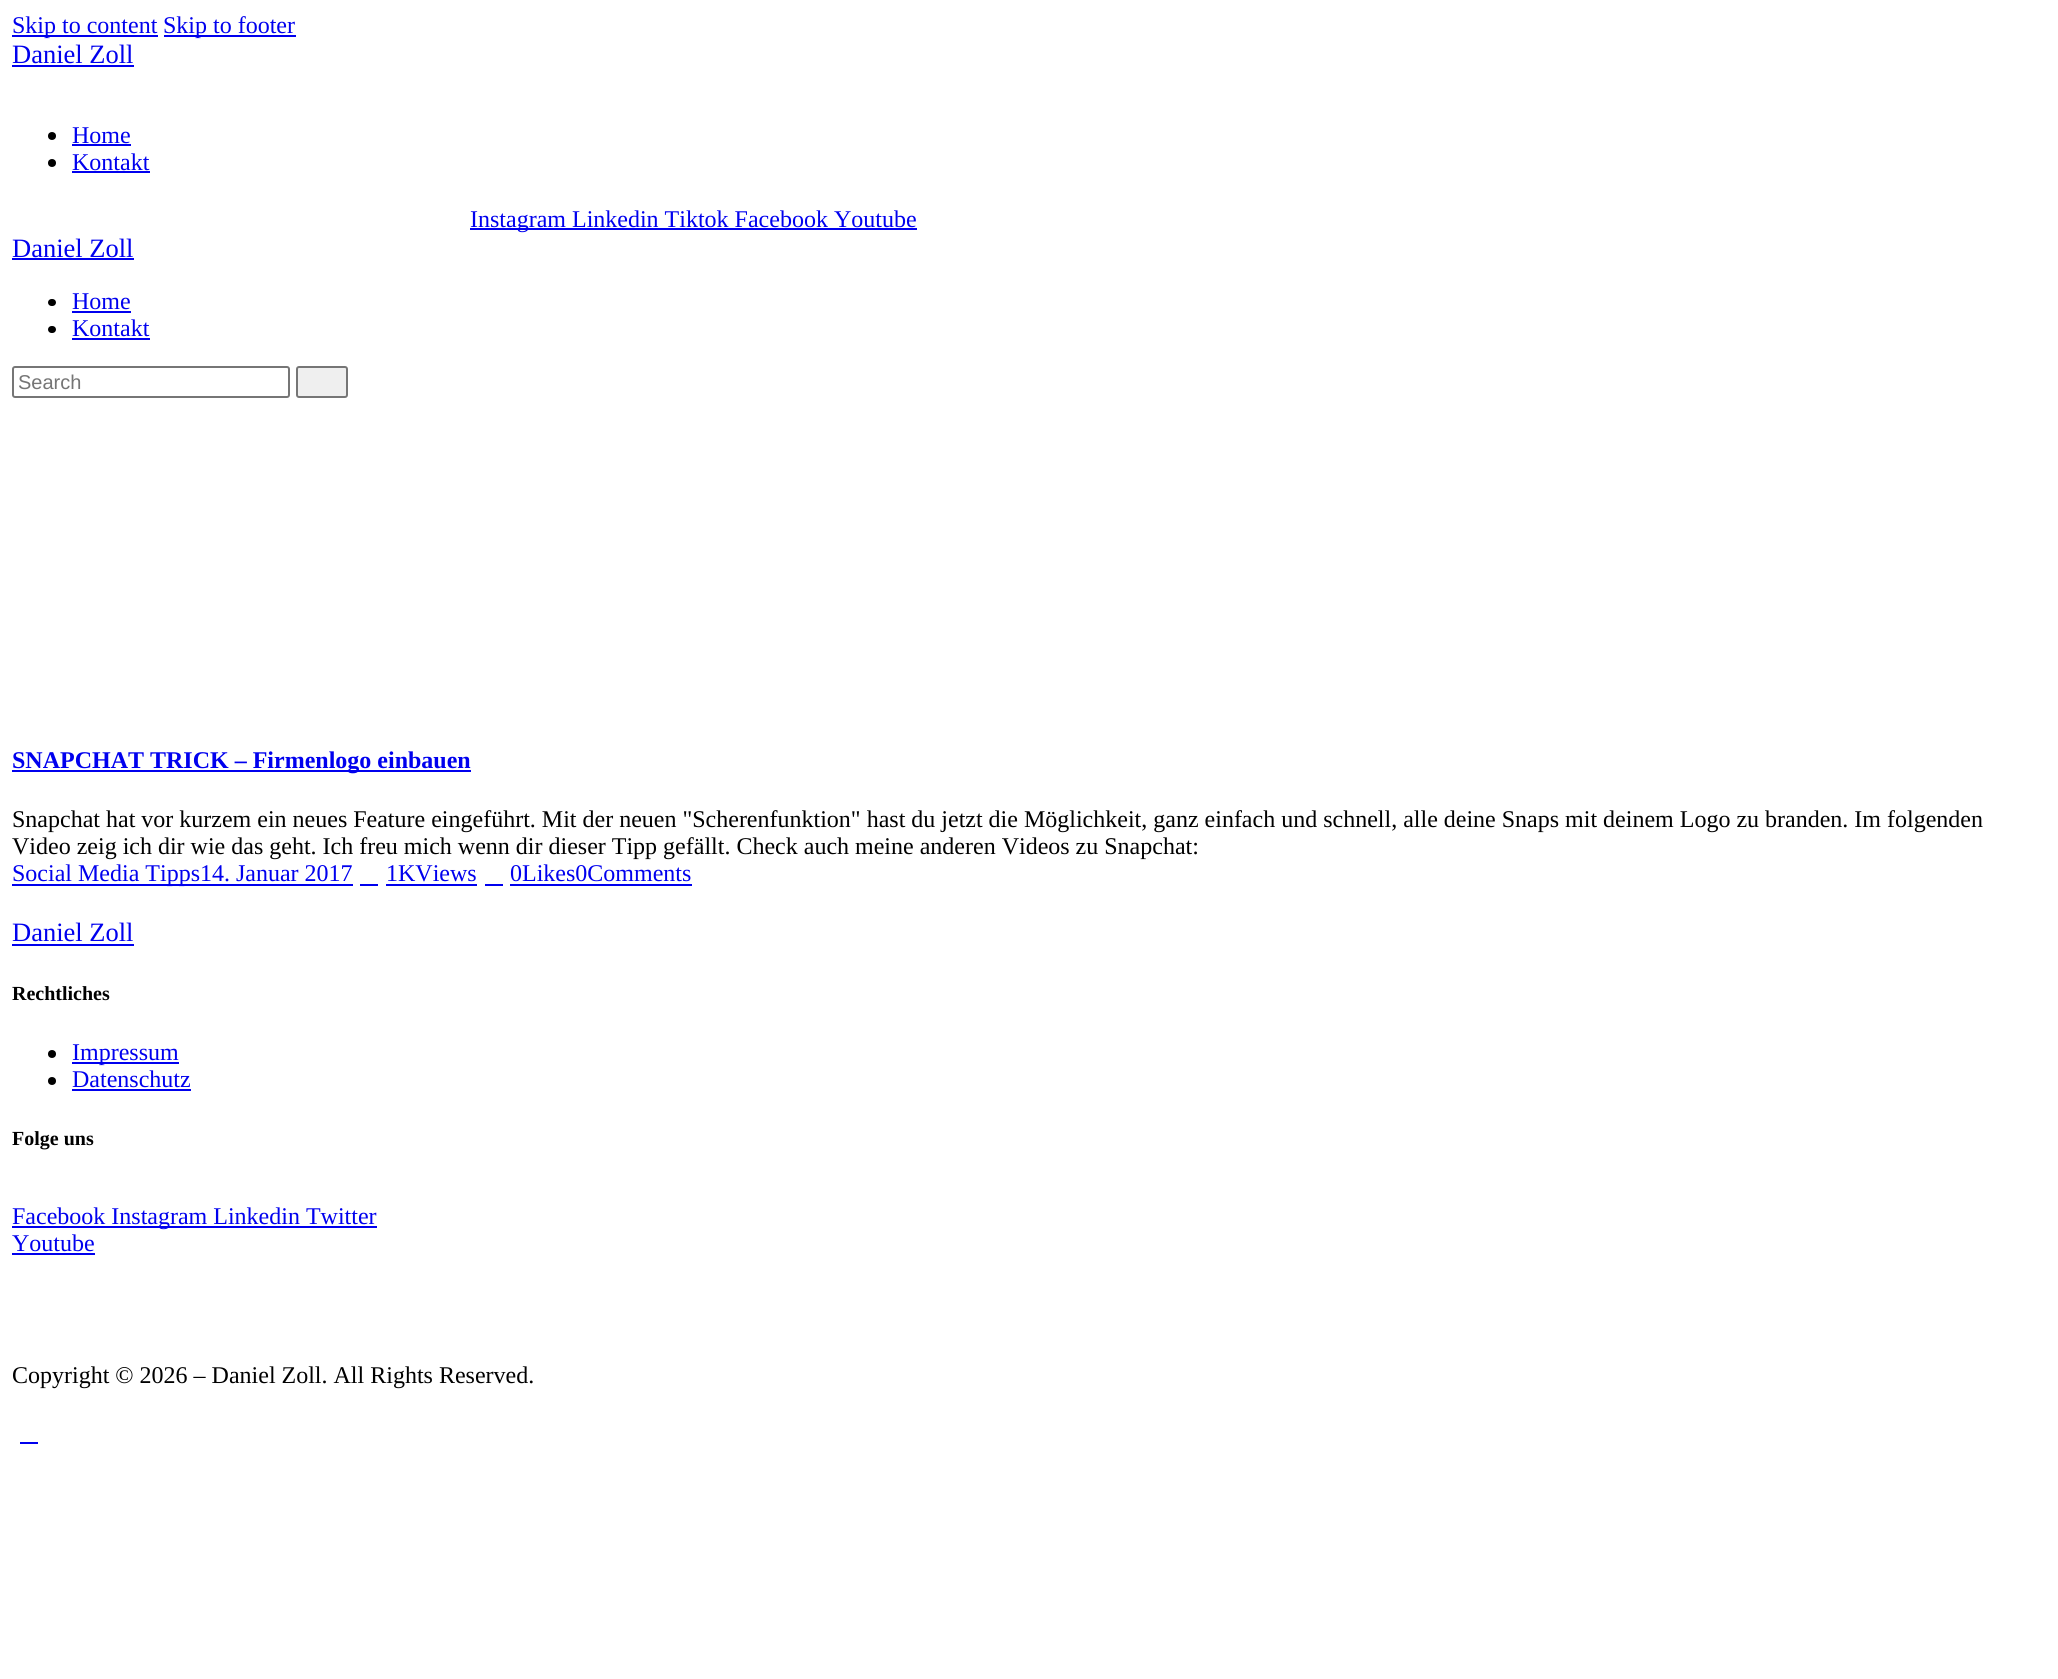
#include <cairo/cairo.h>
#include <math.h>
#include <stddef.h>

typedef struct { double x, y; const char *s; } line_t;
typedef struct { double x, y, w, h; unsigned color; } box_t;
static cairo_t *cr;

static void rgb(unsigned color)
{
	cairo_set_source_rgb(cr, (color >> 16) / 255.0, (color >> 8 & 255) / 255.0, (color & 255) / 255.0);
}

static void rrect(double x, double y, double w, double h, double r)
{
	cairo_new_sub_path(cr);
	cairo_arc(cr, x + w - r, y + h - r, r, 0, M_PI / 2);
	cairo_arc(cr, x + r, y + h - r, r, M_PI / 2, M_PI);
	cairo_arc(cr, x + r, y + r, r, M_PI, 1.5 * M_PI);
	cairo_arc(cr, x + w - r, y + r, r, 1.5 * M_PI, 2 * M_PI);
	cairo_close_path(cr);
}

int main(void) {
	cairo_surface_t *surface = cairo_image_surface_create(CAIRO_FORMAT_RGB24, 2058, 1679);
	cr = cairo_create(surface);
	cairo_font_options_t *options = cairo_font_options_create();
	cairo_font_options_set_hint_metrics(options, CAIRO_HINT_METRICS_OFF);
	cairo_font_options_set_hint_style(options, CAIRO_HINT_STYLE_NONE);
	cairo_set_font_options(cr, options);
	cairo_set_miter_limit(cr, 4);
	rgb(0xffffff);
	cairo_paint(cr);
	{
		static const box_t items[] = {
			{12, 35, 146, 2, 0x0000ee},
			{164, 35, 132, 2, 0x0000ee},
			{12, 65, 122, 2, 0x0000ee},
		};
		for (size_t i = 0; i < sizeof items / sizeof *items; i++) {
			rgb(items[i].color);
			cairo_rectangle(cr, items[i].x, items[i].y, items[i].w, items[i].h);
			cairo_fill(cr);
		}
	}
	rgb(0x000000);
	cairo_arc(cr, 52, 136, 4, 0, 2 * M_PI);
	cairo_fill(cr);
	rgb(0x0000ee);
	cairo_rectangle(cr, 72, 144, 59, 2);
	cairo_fill(cr);
	rgb(0x000000);
	cairo_arc(cr, 52, 163, 4, 0, 2 * M_PI);
	cairo_fill(cr);
	{
		static const box_t items[] = {
			{72, 171, 78, 2, 0x0000ee},
			{470, 228, 358, 2, 0x0000ee},
			{828, 228, 89, 2, 0x0000ee},
			{12, 258, 122, 2, 0x0000ee},
		};
		for (size_t i = 0; i < sizeof items / sizeof *items; i++) {
			rgb(items[i].color);
			cairo_rectangle(cr, items[i].x, items[i].y, items[i].w, items[i].h);
			cairo_fill(cr);
		}
	}
	rgb(0x000000);
	rrect(48, 299, 8, 7, 3.5);
	cairo_fill(cr);
	rgb(0x0000ee);
	cairo_rectangle(cr, 72, 311, 59, 2);
	cairo_fill(cr);
	rgb(0x000000);
	rrect(48, 326, 8, 7, 3.5);
	cairo_fill(cr);
	rgb(0x0000ee);
	cairo_rectangle(cr, 72, 338, 78, 2);
	cairo_fill(cr);
	rrect(13, 367, 276, 30, 2);
	rgb(0x767676);
	cairo_stroke(cr);
	rgb(0xefefef);
	rrect(297, 367, 50, 30, 2);
	cairo_fill_preserve(cr);
	rgb(0x767676);
	cairo_stroke(cr);
	{
		static const box_t items[] = {
			{12, 770, 459, 2, 0x0000ee},
			{12, 884, 341, 2, 0x0000ee},
			{386, 884, 91, 2, 0x0000ee},
			{360, 884, 18, 2, 0x0000ee},
			{510, 884, 182, 2, 0x0000ee},
			{485, 884, 18, 2, 0x0000ee},
			{12, 944, 122, 2, 0x0000ee},
		};
		for (size_t i = 0; i < sizeof items / sizeof *items; i++) {
			rgb(items[i].color);
			cairo_rectangle(cr, items[i].x, items[i].y, items[i].w, items[i].h);
			cairo_fill(cr);
		}
	}
	rgb(0x000000);
	cairo_arc(cr, 52, 1054, 4, 0, 2 * M_PI);
	cairo_fill(cr);
	rgb(0x0000ee);
	cairo_rectangle(cr, 72, 1062, 107, 2);
	cairo_fill(cr);
	rgb(0x000000);
	cairo_arc(cr, 52, 1081, 4, 0, 2 * M_PI);
	cairo_fill(cr);
	{
		static const box_t items[] = {
			{72, 1089, 119, 2, 0x0000ee},
			{12, 1226, 365, 2, 0x0000ee},
			{12, 1253, 83, 2, 0x0000ee},
			{20, 1442, 18, 2, 0x0000ee},
		};
		for (size_t i = 0; i < sizeof items / sizeof *items; i++) {
			rgb(items[i].color);
			cairo_rectangle(cr, items[i].x, items[i].y, items[i].w, items[i].h);
			cairo_fill(cr);
		}
	}
	cairo_select_font_face(cr, "Liberation Serif", CAIRO_FONT_SLANT_NORMAL, CAIRO_FONT_WEIGHT_NORMAL);
	cairo_set_font_size(cr, 24);
	cairo_move_to(cr, 12, 33);
	cairo_show_text(cr, "Skip to content");
	cairo_move_to(cr, 163, 33);
	cairo_show_text(cr, "Skip to footer");
	cairo_set_font_size(cr, 26.5);
	cairo_move_to(cr, 12, 63);
	cairo_show_text(cr, "Daniel Zoll");
	cairo_set_font_size(cr, 24);
	{
		static const line_t items[] = {
			{72, 143, "Home"},
			{72, 170, "Kontakt"},
			{470, 227, "Instagram Linkedin Tiktok Facebook Youtube"},
		};
		for (size_t i = 0; i < sizeof items / sizeof *items; i++) {
			cairo_move_to(cr, items[i].x, items[i].y);
			cairo_show_text(cr, items[i].s);
		}
	}
	cairo_set_font_size(cr, 26.5);
	cairo_move_to(cr, 12, 257);
	cairo_show_text(cr, "Daniel Zoll");
	cairo_set_font_size(cr, 24);
	cairo_move_to(cr, 72, 309);
	cairo_show_text(cr, "Home");
	cairo_move_to(cr, 72, 336);
	cairo_show_text(cr, "Kontakt");
	cairo_select_font_face(cr, "Liberation Sans", CAIRO_FONT_SLANT_NORMAL, CAIRO_FONT_WEIGHT_NORMAL);
	cairo_set_font_size(cr, 20);
	rgb(0x757575);
	cairo_move_to(cr, 18, 389);
	cairo_show_text(cr, "Search");
	cairo_select_font_face(cr, "Liberation Serif", CAIRO_FONT_SLANT_NORMAL, CAIRO_FONT_WEIGHT_BOLD);
	cairo_set_font_size(cr, 24);
	rgb(0x0000ee);
	cairo_move_to(cr, 12, 768);
	cairo_show_text(cr, "SNAPCHAT TRICK – Firmenlogo einbauen");
	cairo_select_font_face(cr, "Liberation Serif", CAIRO_FONT_SLANT_NORMAL, CAIRO_FONT_WEIGHT_NORMAL);
	rgb(0x000000);
	cairo_move_to(cr, 12, 827);
	cairo_show_text(cr, "Snapchat hat vor kurzem ein neues Feature eingeführt. Mit der neuen \"Scherenfunktion\" hast du jetzt die Möglichkeit, ganz einfach und schnell, alle deine Snaps mit deinem Logo zu branden. Im folgenden");
	cairo_move_to(cr, 12, 854);
	cairo_show_text(cr, "Video zeig ich dir wie das geht. Ich freu mich wenn dir dieser Tipp gefällt. Check auch meine anderen Videos zu Snapchat:");
	rgb(0x0000ee);
	{
		static const line_t items[] = {
			{12, 881, "Social Media Tipps14. Januar 2017"},
			{386, 881, "1KViews"},
			{510, 881, "0Likes0Comments"},
		};
		for (size_t i = 0; i < sizeof items / sizeof *items; i++) {
			cairo_move_to(cr, items[i].x, items[i].y);
			cairo_show_text(cr, items[i].s);
		}
	}
	cairo_set_font_size(cr, 26.5);
	cairo_move_to(cr, 12, 941);
	cairo_show_text(cr, "Daniel Zoll");
	cairo_select_font_face(cr, "Liberation Serif", CAIRO_FONT_SLANT_NORMAL, CAIRO_FONT_WEIGHT_BOLD);
	cairo_set_font_size(cr, 20);
	rgb(0x000000);
	cairo_move_to(cr, 12, 1000);
	cairo_show_text(cr, "Rechtliches");
	cairo_select_font_face(cr, "Liberation Serif", CAIRO_FONT_SLANT_NORMAL, CAIRO_FONT_WEIGHT_NORMAL);
	cairo_set_font_size(cr, 24);
	rgb(0x0000ee);
	cairo_move_to(cr, 72, 1060);
	cairo_show_text(cr, "Impressum");
	cairo_move_to(cr, 72, 1087);
	cairo_show_text(cr, "Datenschutz");
	cairo_select_font_face(cr, "Liberation Serif", CAIRO_FONT_SLANT_NORMAL, CAIRO_FONT_WEIGHT_BOLD);
	cairo_set_font_size(cr, 20);
	rgb(0x000000);
	cairo_move_to(cr, 12, 1145);
	cairo_show_text(cr, "Folge uns");
	cairo_select_font_face(cr, "Liberation Serif", CAIRO_FONT_SLANT_NORMAL, CAIRO_FONT_WEIGHT_NORMAL);
	cairo_set_font_size(cr, 24);
	rgb(0x0000ee);
	cairo_move_to(cr, 12, 1224);
	cairo_show_text(cr, "Facebook Instagram Linkedin Twitter");
	cairo_move_to(cr, 12, 1251);
	cairo_show_text(cr, "Youtube");
	rgb(0x000000);
	cairo_move_to(cr, 12, 1383);
	cairo_show_text(cr, "Copyright © 2026 – Daniel Zoll. All Rights Reserved.");
	cairo_surface_write_to_png(surface, "page.png");
	cairo_font_options_destroy(options);
	cairo_destroy(cr);
	cairo_surface_destroy(surface);
	return 0;
}
